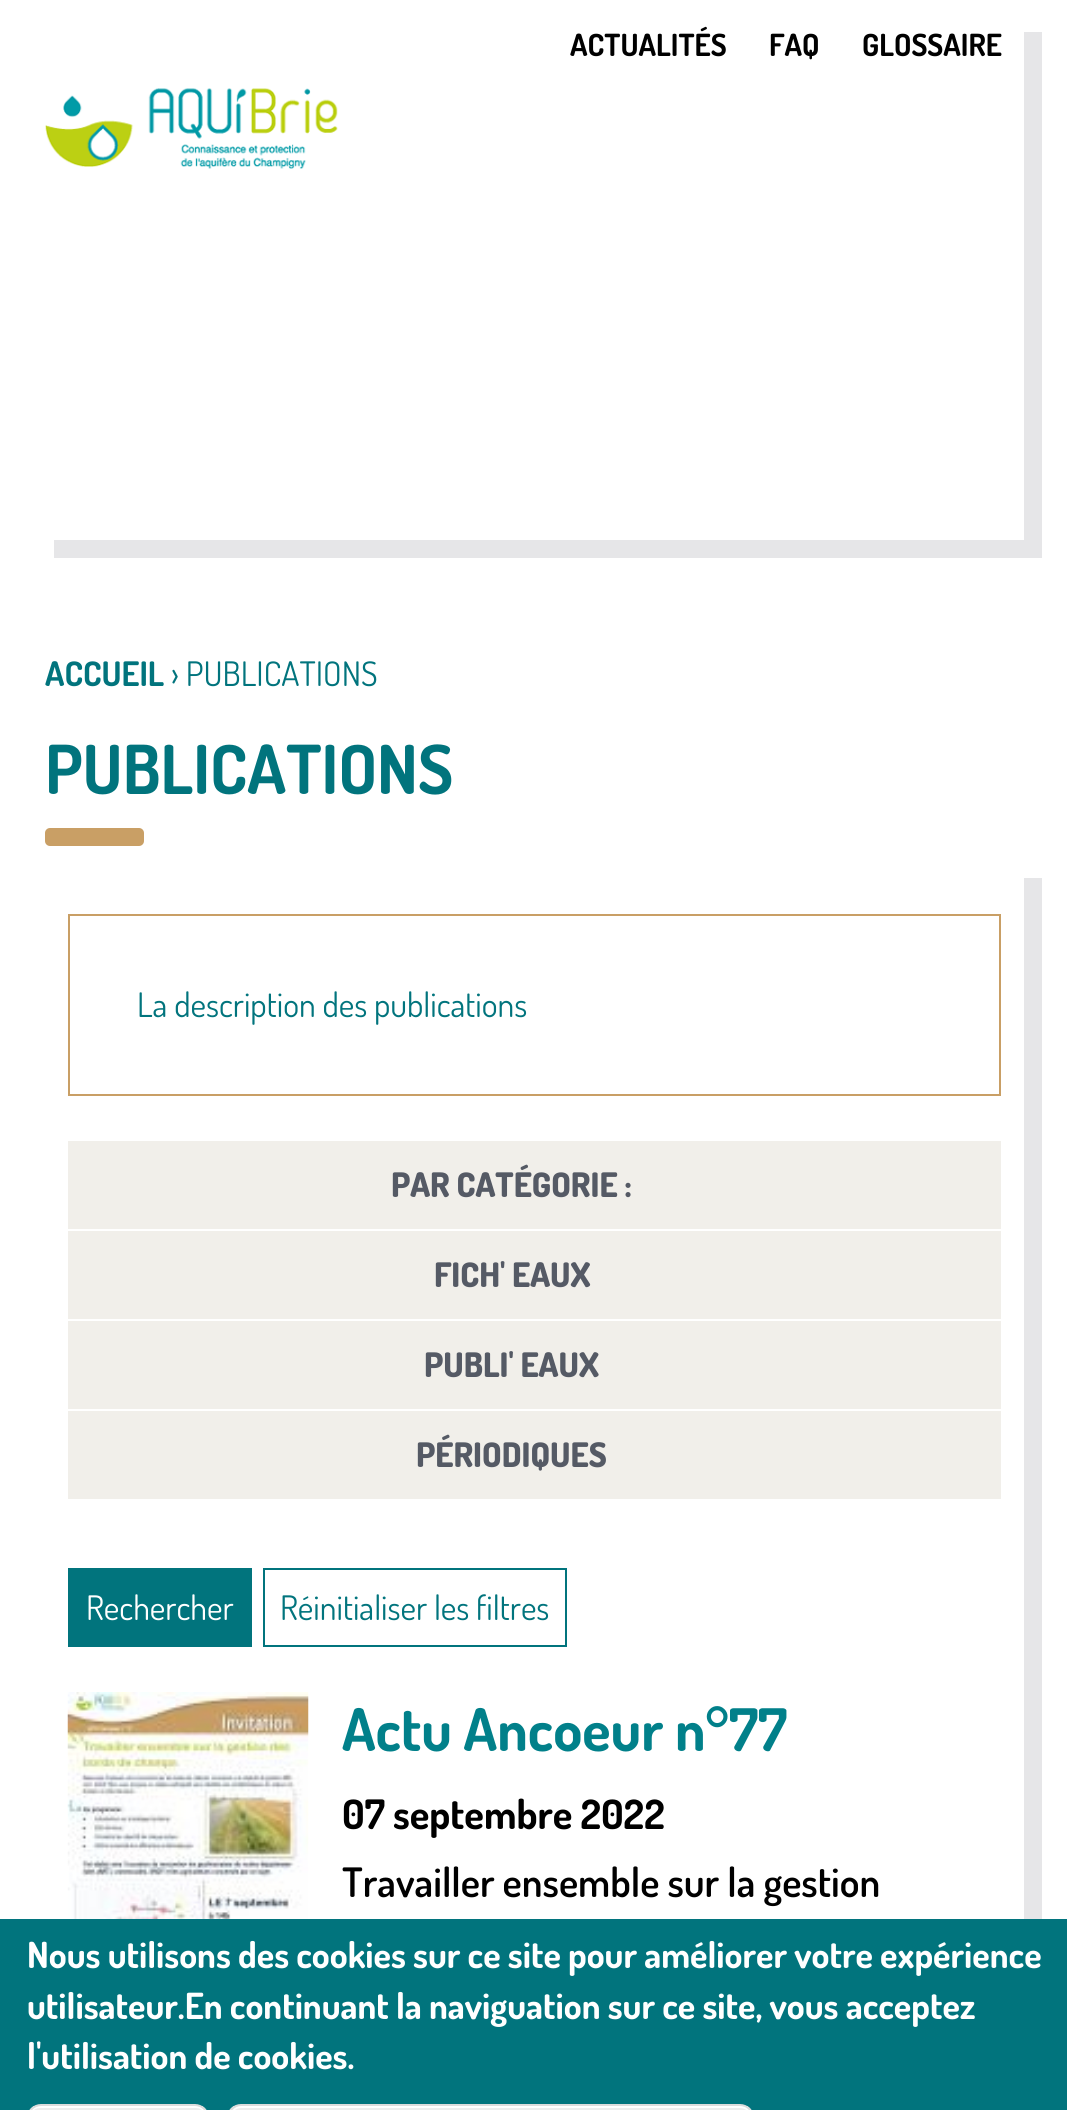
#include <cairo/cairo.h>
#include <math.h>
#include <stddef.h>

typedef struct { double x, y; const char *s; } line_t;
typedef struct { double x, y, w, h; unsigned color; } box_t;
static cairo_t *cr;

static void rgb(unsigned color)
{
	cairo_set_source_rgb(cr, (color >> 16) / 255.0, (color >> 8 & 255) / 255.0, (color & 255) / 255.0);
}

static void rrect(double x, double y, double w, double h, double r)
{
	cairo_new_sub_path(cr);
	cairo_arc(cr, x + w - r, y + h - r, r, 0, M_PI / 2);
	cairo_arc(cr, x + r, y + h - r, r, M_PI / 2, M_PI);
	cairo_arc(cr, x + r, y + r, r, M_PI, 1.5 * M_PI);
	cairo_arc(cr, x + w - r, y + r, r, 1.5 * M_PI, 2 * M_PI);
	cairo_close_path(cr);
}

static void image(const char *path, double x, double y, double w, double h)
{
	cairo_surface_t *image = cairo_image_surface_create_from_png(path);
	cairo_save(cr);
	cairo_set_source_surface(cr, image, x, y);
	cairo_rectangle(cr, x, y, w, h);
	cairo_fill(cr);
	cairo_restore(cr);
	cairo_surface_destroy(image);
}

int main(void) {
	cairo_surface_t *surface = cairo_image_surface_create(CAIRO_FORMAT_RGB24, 1067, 2110);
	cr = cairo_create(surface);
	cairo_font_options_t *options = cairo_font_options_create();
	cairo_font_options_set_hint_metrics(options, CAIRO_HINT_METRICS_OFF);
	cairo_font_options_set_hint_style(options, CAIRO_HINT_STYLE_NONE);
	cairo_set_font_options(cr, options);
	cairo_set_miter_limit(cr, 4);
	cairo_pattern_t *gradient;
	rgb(0xffffff);
	cairo_paint(cr);
	rgb(0xe6e6e8);
	cairo_new_path(cr);
	cairo_move_to(cr, 54, 540);
	cairo_line_to(cr, 54, 558);
	cairo_line_to(cr, 1042, 558);
	cairo_line_to(cr, 1042, 32);
	cairo_line_to(cr, 1024, 32);
	cairo_line_to(cr, 1024, 540);
	cairo_close_path(cr);
	cairo_fill(cr);
	image("img/1.png", 45, 88, 293, 81);
	rgb(0xc99f65);
	rrect(45, 828, 99, 18, 5);
	cairo_fill(cr);
	rgb(0xe6e6e8);
	cairo_new_path(cr);
	cairo_move_to(cr, 54, 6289);
	cairo_line_to(cr, 54, 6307);
	cairo_line_to(cr, 1042, 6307);
	cairo_line_to(cr, 1042, 878);
	cairo_line_to(cr, 1024, 878);
	cairo_line_to(cr, 1024, 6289);
	cairo_close_path(cr);
	cairo_fill(cr);
	cairo_rectangle(cr, 69, 915, 931, 180);
	rgb(0xc99f65);
	cairo_stroke(cr);
	{
		static const box_t items[] = {
			{68, 1141, 933, 88, 0xf1efea},
			{68, 1231, 933, 88, 0xf1efea},
			{68, 1321, 933, 88, 0xf1efea},
			{68, 1411, 933, 88, 0xf1efea},
			{68, 1568, 184, 79, 0x01747d},
		};
		for (size_t i = 0; i < sizeof items / sizeof *items; i++) {
			rgb(items[i].color);
			cairo_rectangle(cr, items[i].x, items[i].y, items[i].w, items[i].h);
			cairo_fill(cr);
		}
	}
	cairo_rectangle(cr, 264, 1569, 302, 77);
	cairo_stroke(cr);
	image("img/2.png", 67, 1692, 242, 227);
	cairo_rectangle(cr, 0, 1919, 1067, 191);
	cairo_fill(cr);
	cairo_save(cr);
	rrect(27, 2104, 182, 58, 14);
	cairo_clip(cr);
	gradient = cairo_pattern_create_linear(118, 2106, 118, 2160);
	cairo_pattern_add_color_stop_rgba(gradient, 0.05, 0.929, 0.929, 0.929, 1);
	cairo_pattern_add_color_stop_rgba(gradient, 1, 0.875, 0.875, 0.875, 1);
	cairo_set_source(cr, gradient);
	cairo_pattern_destroy(gradient);
	cairo_rectangle(cr, 27, 2106, 182, 4);
	cairo_fill(cr);
	cairo_restore(cr);
	rgb(0xffffff);
	cairo_new_path(cr);
	cairo_move_to(cr, 40, 2108);
	cairo_line_to(cr, 196, 2108);
	cairo_curve_to(cr, 202, 2108, 207, 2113, 207, 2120);
	cairo_line_to(cr, 207, 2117);
	cairo_curve_to(cr, 207, 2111, 202, 2106, 196, 2106);
	cairo_line_to(cr, 40, 2106);
	cairo_curve_to(cr, 34, 2106, 29, 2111, 29, 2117);
	cairo_line_to(cr, 29, 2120);
	cairo_curve_to(cr, 29, 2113, 34, 2108, 40, 2108);
	cairo_close_path(cr);
	cairo_fill(cr);
	rrect(28, 2105, 180, 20, 13);
	rgb(0xdcdcdc);
	cairo_stroke(cr);
	cairo_save(cr);
	rrect(227, 2104, 527, 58, 14);
	cairo_clip(cr);
	gradient = cairo_pattern_create_linear(491, 2106, 491, 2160);
	cairo_pattern_add_color_stop_rgba(gradient, 0.05, 0.929, 0.929, 0.929, 1);
	cairo_pattern_add_color_stop_rgba(gradient, 1, 0.875, 0.875, 0.875, 1);
	cairo_set_source(cr, gradient);
	cairo_pattern_destroy(gradient);
	cairo_rectangle(cr, 227, 2106, 527, 4);
	cairo_fill(cr);
	cairo_restore(cr);
	rgb(0xffffff);
	cairo_new_path(cr);
	cairo_move_to(cr, 241, 2108);
	cairo_line_to(cr, 740, 2108);
	cairo_curve_to(cr, 746, 2108, 752, 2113, 752, 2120);
	cairo_curve_to(cr, 752, 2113, 749, 2106, 741, 2106);
	cairo_line_to(cr, 239, 2106);
	cairo_curve_to(cr, 232, 2108, 230, 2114, 230, 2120);
	cairo_curve_to(cr, 230, 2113, 235, 2108, 241, 2108);
	cairo_close_path(cr);
	cairo_fill(cr);
	rrect(228, 2105, 525, 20, 13);
	rgb(0xdcdcdc);
	cairo_stroke(cr);
	cairo_select_font_face(cr, "Dosis", CAIRO_FONT_SLANT_NORMAL, CAIRO_FONT_WEIGHT_BOLD);
	cairo_set_font_size(cr, 30.5);
	rgb(0x000000);
	{
		static const line_t items[] = {
			{570, 56, "ACTUALITÉS"},
			{769, 56, "FAQ"},
			{862, 56, "GLOSSAIRE"},
		};
		for (size_t i = 0; i < sizeof items / sizeof *items; i++) {
			cairo_move_to(cr, items[i].x, items[i].y);
			cairo_show_text(cr, items[i].s);
		}
	}
	cairo_set_font_size(cr, 33.75);
	rgb(0x01747d);
	cairo_move_to(cr, 45, 686);
	cairo_show_text(cr, "ACCUEIL");
	cairo_select_font_face(cr, "Dosis", CAIRO_FONT_SLANT_NORMAL, CAIRO_FONT_WEIGHT_NORMAL);
	cairo_move_to(cr, 171, 686);
	cairo_show_text(cr, "› PUBLICATIONS");
	cairo_select_font_face(cr, "Dosis", CAIRO_FONT_SLANT_NORMAL, CAIRO_FONT_WEIGHT_BOLD);
	cairo_set_font_size(cr, 67.5);
	cairo_move_to(cr, 45, 794);
	cairo_show_text(cr, "PUBLICATIONS");
	cairo_select_font_face(cr, "Dosis", CAIRO_FONT_SLANT_NORMAL, CAIRO_FONT_WEIGHT_NORMAL);
	cairo_set_font_size(cr, 33.75);
	cairo_move_to(cr, 137, 1017);
	cairo_show_text(cr, "La description des publications");
	cairo_select_font_face(cr, "Dosis ExtraBold", CAIRO_FONT_SLANT_NORMAL, CAIRO_FONT_WEIGHT_NORMAL);
	rgb(0x555a65);
	{
		static const line_t items[] = {
			{391, 1197, "PAR CATÉGORIE :"},
			{434, 1287, "FICH' EAUX"},
			{424, 1377, "PUBLI' EAUX"},
			{416, 1467, "PÉRIODIQUES"},
		};
		for (size_t i = 0; i < sizeof items / sizeof *items; i++) {
			cairo_move_to(cr, items[i].x, items[i].y);
			cairo_show_text(cr, items[i].s);
		}
	}
	cairo_select_font_face(cr, "Dosis", CAIRO_FONT_SLANT_NORMAL, CAIRO_FONT_WEIGHT_NORMAL);
	rgb(0xffffff);
	cairo_move_to(cr, 86, 1620);
	cairo_show_text(cr, "Rechercher");
	rgb(0x01747d);
	cairo_move_to(cr, 280, 1620);
	cairo_show_text(cr, "Réinitialiser les filtres");
	cairo_select_font_face(cr, "Dosis", CAIRO_FONT_SLANT_NORMAL, CAIRO_FONT_WEIGHT_BOLD);
	cairo_set_font_size(cr, 58.5);
	rgb(0x01808a);
	cairo_move_to(cr, 342, 1751);
	cairo_show_text(cr, "Actu Ancoeur n°77");
	cairo_set_font_size(cr, 40.5);
	rgb(0x000000);
	cairo_move_to(cr, 342, 1829);
	cairo_show_text(cr, "07 septembre 2022");
	cairo_select_font_face(cr, "Dosis SemiBold", CAIRO_FONT_SLANT_NORMAL, CAIRO_FONT_WEIGHT_NORMAL);
	cairo_move_to(cr, 342, 1897);
	cairo_show_text(cr, "Travailler ensemble sur la gestion");
	cairo_select_font_face(cr, "Dosis", CAIRO_FONT_SLANT_NORMAL, CAIRO_FONT_WEIGHT_BOLD);
	cairo_set_font_size(cr, 36);
	rgb(0xffffff);
	{
		static const line_t items[] = {
			{27, 1968, "Nous utilisons des cookies sur ce site pour améliorer votre expérience"},
			{27, 2019, "utilisateur.En continuant la naviguation sur ce site, vous acceptez"},
			{27, 2069, "l'utilisation de cookies."},
		};
		for (size_t i = 0; i < sizeof items / sizeof *items; i++) {
			cairo_move_to(cr, items[i].x, items[i].y);
			cairo_show_text(cr, items[i].s);
		}
	}
	cairo_surface_write_to_png(surface, "page.png");
	cairo_font_options_destroy(options);
	cairo_destroy(cr);
	cairo_surface_destroy(surface);
	return 0;
}
